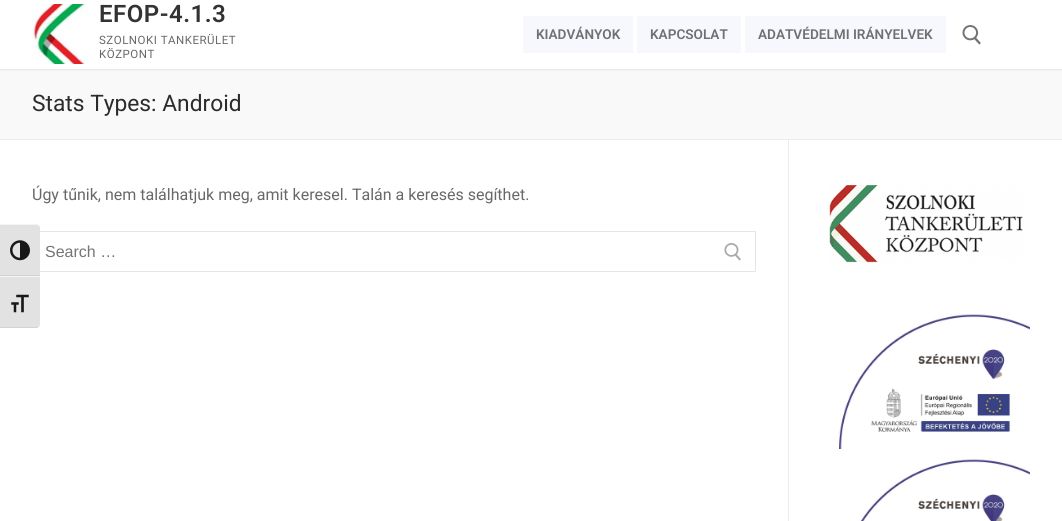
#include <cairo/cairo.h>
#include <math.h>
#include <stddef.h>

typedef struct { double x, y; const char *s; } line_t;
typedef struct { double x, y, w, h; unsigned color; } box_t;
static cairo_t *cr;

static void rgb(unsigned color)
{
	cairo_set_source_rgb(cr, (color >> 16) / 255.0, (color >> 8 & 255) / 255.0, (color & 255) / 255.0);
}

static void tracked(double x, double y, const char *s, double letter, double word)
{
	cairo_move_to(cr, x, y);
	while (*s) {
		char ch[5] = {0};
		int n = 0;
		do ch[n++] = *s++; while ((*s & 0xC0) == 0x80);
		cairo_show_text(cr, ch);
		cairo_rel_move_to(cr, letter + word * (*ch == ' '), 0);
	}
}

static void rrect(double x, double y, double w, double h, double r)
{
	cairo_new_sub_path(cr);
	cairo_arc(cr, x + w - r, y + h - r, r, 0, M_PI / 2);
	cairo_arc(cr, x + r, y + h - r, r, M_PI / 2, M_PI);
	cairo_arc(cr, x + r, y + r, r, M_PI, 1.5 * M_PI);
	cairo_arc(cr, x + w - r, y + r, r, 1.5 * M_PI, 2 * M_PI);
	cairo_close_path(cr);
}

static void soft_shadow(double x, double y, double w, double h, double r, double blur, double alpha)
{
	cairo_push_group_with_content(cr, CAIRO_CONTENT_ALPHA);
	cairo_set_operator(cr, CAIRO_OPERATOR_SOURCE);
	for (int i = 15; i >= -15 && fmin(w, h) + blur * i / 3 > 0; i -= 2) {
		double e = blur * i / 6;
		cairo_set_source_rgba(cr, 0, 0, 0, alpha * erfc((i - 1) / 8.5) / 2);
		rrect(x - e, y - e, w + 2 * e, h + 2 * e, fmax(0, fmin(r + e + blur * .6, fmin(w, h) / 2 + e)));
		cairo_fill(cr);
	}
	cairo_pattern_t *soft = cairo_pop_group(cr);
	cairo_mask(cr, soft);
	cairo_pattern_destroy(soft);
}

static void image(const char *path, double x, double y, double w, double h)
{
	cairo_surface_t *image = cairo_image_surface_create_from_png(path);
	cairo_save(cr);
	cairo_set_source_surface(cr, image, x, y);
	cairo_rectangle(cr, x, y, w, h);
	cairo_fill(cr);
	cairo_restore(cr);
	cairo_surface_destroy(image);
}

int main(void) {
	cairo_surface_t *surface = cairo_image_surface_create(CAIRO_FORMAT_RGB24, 1062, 521);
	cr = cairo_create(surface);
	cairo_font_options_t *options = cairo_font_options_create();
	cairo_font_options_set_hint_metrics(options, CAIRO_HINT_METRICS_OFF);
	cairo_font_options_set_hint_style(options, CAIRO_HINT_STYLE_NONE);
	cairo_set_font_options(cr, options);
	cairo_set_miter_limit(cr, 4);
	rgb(0xffffff);
	cairo_paint(cr);
	rgb(0xf9f9f9);
	cairo_rectangle(cr, 0, 69, 1062, 70);
	cairo_fill(cr);
	cairo_save(cr);
	cairo_rectangle(cr, 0, 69, 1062, 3);
	cairo_clip(cr);
	rgb(0xe1e5ea);
	soft_shadow(0, 1, 1062, 69, 0, 1, 1);
	cairo_restore(cr);
	image("img/1.png", 32, 4, 57, 60);
	{
		static const box_t items[] = {
			{523, 16, 110, 37, 0xf7f8fd},
			{637, 16, 104, 37, 0xf7f8fd},
			{745, 16, 201, 37, 0xf7f8fd},
		};
		for (size_t i = 0; i < sizeof items / sizeof *items; i++) {
			rgb(items[i].color);
			cairo_rectangle(cr, items[i].x, items[i].y, items[i].w, items[i].h);
			cairo_fill(cr);
		}
	}
	image("img/2.png", 962, 25, 19, 20);
	rgb(0xeaecee);
	cairo_rectangle(cr, 0, 139, 1062, 1);
	cairo_fill(cr);
	cairo_rectangle(cr, 788, 140, 1, 381);
	cairo_fill(cr);
	rrect(32.5, 231.5, 723, 40, 0.5);
	rgb(0xe5e5e5);
	cairo_set_line_width(cr, 1);
	cairo_stroke(cr);
	image("img/3.png", 724, 243, 17, 18);
	image("img/4.png", 829, 185, 194, 78);
	image("img/5.png", 838, 314, 192, 207);
	rgb(0xe2e2e2);
	cairo_new_path(cr);
	cairo_move_to(cr, 0, 224);
	cairo_line_to(cr, 36, 224);
	cairo_curve_to(cr, 38, 224, 40, 226, 40, 228);
	cairo_line_to(cr, 40, 276);
	cairo_line_to(cr, 0, 276);
	cairo_close_path(cr);
	cairo_fill(cr);
	rgb(0xf5f5f5);
	cairo_new_path(cr);
	cairo_move_to(cr, 0, 224);
	cairo_line_to(cr, 0, 225);
	cairo_line_to(cr, 36, 225);
	cairo_curve_to(cr, 38, 225, 40, 226, 40, 228);
	cairo_curve_to(cr, 40, 226, 38, 224, 36, 224);
	cairo_close_path(cr);
	cairo_fill(cr);
	rgb(0xd2d2d2);
	cairo_rectangle(cr, 0, 275, 40, 1);
	cairo_fill(cr);
	image("img/6.png", 10, 240, 20, 21);
	rgb(0xe2e2e2);
	cairo_new_path(cr);
	cairo_move_to(cr, 0, 276);
	cairo_line_to(cr, 40, 276);
	cairo_line_to(cr, 40, 324);
	cairo_curve_to(cr, 40, 326, 38, 328, 36, 328);
	cairo_line_to(cr, 0, 328);
	cairo_close_path(cr);
	cairo_fill(cr);
	rgb(0xf5f5f5);
	cairo_rectangle(cr, 0, 276, 40, 1);
	cairo_fill(cr);
	rgb(0xd2d2d2);
	cairo_new_path(cr);
	cairo_move_to(cr, 0, 327);
	cairo_line_to(cr, 0, 328);
	cairo_line_to(cr, 36, 328);
	cairo_curve_to(cr, 38, 328, 40, 326, 40, 324);
	cairo_curve_to(cr, 40, 326, 38, 327, 36, 327);
	cairo_close_path(cr);
	cairo_fill(cr);
	image("img/7.png", 11, 294, 18, 19);
	cairo_select_font_face(cr, "Roboto SemiBold", CAIRO_FONT_SLANT_NORMAL, CAIRO_FONT_WEIGHT_NORMAL);
	cairo_set_font_size(cr, 24);
	rgb(0x333333);
	tracked(99, 22, "EFOP-4.1.3", 0.5, 0);
	cairo_select_font_face(cr, "Roboto", CAIRO_FONT_SLANT_NORMAL, CAIRO_FONT_WEIGHT_NORMAL);
	cairo_set_font_size(cr, 11.5);
	rgb(0x686868);
	tracked(99, 44, "SZOLNOKI TANKERÜLET", 0.5, 0);
	tracked(99, 58, "KÖZPONT", 0.5, 0);
	cairo_select_font_face(cr, "Roboto SemiBold", CAIRO_FONT_SLANT_NORMAL, CAIRO_FONT_WEIGHT_NORMAL);
	cairo_set_font_size(cr, 13.6);
	rgb(0x6f7072);
	{
		static const line_t items[] = {
			{536, 39, "KIADVÁNYOK"},
			{650, 39, "KAPCSOLAT"},
			{758, 39, "ADATVÉDELMI IRÁNYELVEK"},
		};
		for (size_t i = 0; i < sizeof items / sizeof *items; i++) {
			cairo_move_to(cr, items[i].x, items[i].y);
			cairo_show_text(cr, items[i].s);
		}
	}
	cairo_select_font_face(cr, "Roboto", CAIRO_FONT_SLANT_NORMAL, CAIRO_FONT_WEIGHT_NORMAL);
	cairo_set_font_size(cr, 22.75);
	rgb(0x2b2b2b);
	cairo_move_to(cr, 32, 111);
	cairo_show_text(cr, "Stats Types: Android");
	cairo_set_font_size(cr, 16);
	rgb(0x686868);
	cairo_move_to(cr, 32, 200);
	cairo_show_text(cr, "Úgy tűnik, nem találhatjuk meg, amit keresel. Talán a keresés segíthet.");
	cairo_select_font_face(cr, "Liberation Sans", CAIRO_FONT_SLANT_NORMAL, CAIRO_FONT_WEIGHT_NORMAL);
	rgb(0x757575);
	cairo_move_to(cr, 45, 257);
	cairo_show_text(cr, "Search …");
	cairo_surface_write_to_png(surface, "page.png");
	cairo_font_options_destroy(options);
	cairo_destroy(cr);
	cairo_surface_destroy(surface);
	return 0;
}
